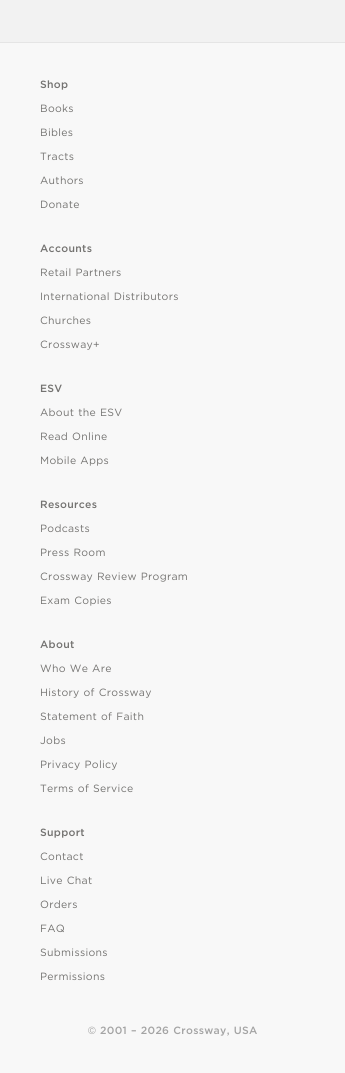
#include <cairo/cairo.h>
#include <math.h>
#include <stddef.h>

typedef struct { double x, y; const char *s; } line_t;
static cairo_t *cr;

static void rgb(unsigned color)
{
	cairo_set_source_rgb(cr, (color >> 16) / 255.0, (color >> 8 & 255) / 255.0, (color & 255) / 255.0);
}

static void tracked(double x, double y, const char *s, double letter, double word)
{
	cairo_move_to(cr, x, y);
	while (*s) {
		char ch[5] = {0};
		int n = 0;
		do ch[n++] = *s++; while ((*s & 0xC0) == 0x80);
		cairo_show_text(cr, ch);
		cairo_rel_move_to(cr, letter + word * (*ch == ' '), 0);
	}
}

int main(void) {
	cairo_surface_t *surface = cairo_image_surface_create(CAIRO_FORMAT_RGB24, 345, 1073);
	cr = cairo_create(surface);
	cairo_font_options_t *options = cairo_font_options_create();
	cairo_font_options_set_hint_metrics(options, CAIRO_HINT_METRICS_OFF);
	cairo_font_options_set_hint_style(options, CAIRO_HINT_STYLE_NONE);
	cairo_set_font_options(cr, options);
	cairo_set_miter_limit(cr, 4);
	rgb(0xf8f8f8);
	cairo_paint(cr);
	rgb(0xf2f2f2);
	cairo_rectangle(cr, 0, 0, 345, 42);
	cairo_fill(cr);
	rgb(0xe5e5e5);
	cairo_rectangle(cr, 0, 42, 345, 1);
	cairo_fill(cr);
	cairo_select_font_face(cr, "Gotham Medium", CAIRO_FONT_SLANT_NORMAL, CAIRO_FONT_WEIGHT_NORMAL);
	cairo_set_font_size(cr, 10.5);
	rgb(0x747371);
	tracked(40, 88, "Shop", 0.3, 0);
	cairo_select_font_face(cr, "Gotham", CAIRO_FONT_SLANT_NORMAL, CAIRO_FONT_WEIGHT_NORMAL);
	{
		static const line_t items[] = {
			{40, 112, "Books"},
			{40, 136, "Bibles"},
			{40, 160, "Tracts"},
			{40, 184, "Authors"},
			{40, 208, "Donate"},
		};
		for (size_t i = 0; i < sizeof items / sizeof *items; i++) {
			tracked(items[i].x, items[i].y, items[i].s, 0.3, 0);
		}
	}
	cairo_select_font_face(cr, "Gotham Medium", CAIRO_FONT_SLANT_NORMAL, CAIRO_FONT_WEIGHT_NORMAL);
	tracked(40, 252, "Accounts", 0.3, 0);
	cairo_select_font_face(cr, "Gotham", CAIRO_FONT_SLANT_NORMAL, CAIRO_FONT_WEIGHT_NORMAL);
	tracked(40, 276, "Retail Partners", 0.3, 0.5);
	tracked(40, 300, "International Distributors", 0.3, 0.5);
	tracked(40, 324, "Churches", 0.3, 0);
	tracked(40, 348, "Crossway+", 0.3, 0);
	cairo_select_font_face(cr, "Gotham Medium", CAIRO_FONT_SLANT_NORMAL, CAIRO_FONT_WEIGHT_NORMAL);
	tracked(40, 392, "ESV", 0.3, 0);
	cairo_select_font_face(cr, "Gotham", CAIRO_FONT_SLANT_NORMAL, CAIRO_FONT_WEIGHT_NORMAL);
	{
		static const line_t items[] = {
			{40, 416, "About the ESV"},
			{40, 440, "Read Online"},
			{40, 464, "Mobile Apps"},
		};
		for (size_t i = 0; i < sizeof items / sizeof *items; i++) {
			tracked(items[i].x, items[i].y, items[i].s, 0.3, 0.5);
		}
	}
	cairo_select_font_face(cr, "Gotham Medium", CAIRO_FONT_SLANT_NORMAL, CAIRO_FONT_WEIGHT_NORMAL);
	tracked(40, 508, "Resources", 0.3, 0);
	cairo_select_font_face(cr, "Gotham", CAIRO_FONT_SLANT_NORMAL, CAIRO_FONT_WEIGHT_NORMAL);
	tracked(40, 532, "Podcasts", 0.3, 0);
	{
		static const line_t items[] = {
			{40, 556, "Press Room"},
			{40, 580, "Crossway Review Program"},
			{40, 604, "Exam Copies"},
		};
		for (size_t i = 0; i < sizeof items / sizeof *items; i++) {
			tracked(items[i].x, items[i].y, items[i].s, 0.3, 0.5);
		}
	}
	cairo_select_font_face(cr, "Gotham Medium", CAIRO_FONT_SLANT_NORMAL, CAIRO_FONT_WEIGHT_NORMAL);
	tracked(40, 648, "About", 0.3, 0);
	cairo_select_font_face(cr, "Gotham", CAIRO_FONT_SLANT_NORMAL, CAIRO_FONT_WEIGHT_NORMAL);
	{
		static const line_t items[] = {
			{40, 672, "Who We Are"},
			{40, 696, "History of Crossway"},
			{40, 720, "Statement of Faith"},
		};
		for (size_t i = 0; i < sizeof items / sizeof *items; i++) {
			tracked(items[i].x, items[i].y, items[i].s, 0.3, 0.5);
		}
	}
	tracked(40, 744, "Jobs", 0.3, 0);
	tracked(40, 768, "Privacy Policy", 0.3, 0.5);
	tracked(40, 792, "Terms of Service", 0.3, 0.5);
	cairo_select_font_face(cr, "Gotham Medium", CAIRO_FONT_SLANT_NORMAL, CAIRO_FONT_WEIGHT_NORMAL);
	tracked(40, 836, "Support", 0.3, 0);
	cairo_select_font_face(cr, "Gotham", CAIRO_FONT_SLANT_NORMAL, CAIRO_FONT_WEIGHT_NORMAL);
	tracked(40, 860, "Contact", 0.3, 0);
	tracked(40, 884, "Live Chat", 0.3, 0.5);
	{
		static const line_t items[] = {
			{40, 908, "Orders"},
			{40, 932, "FAQ"},
			{40, 956, "Submissions"},
			{40, 980, "Permissions"},
		};
		for (size_t i = 0; i < sizeof items / sizeof *items; i++) {
			tracked(items[i].x, items[i].y, items[i].s, 0.3, 0);
		}
	}
	cairo_select_font_face(cr, "Liberation Sans", CAIRO_FONT_SLANT_NORMAL, CAIRO_FONT_WEIGHT_NORMAL);
	rgb(0xa4a4a4);
	tracked(88, 1034, "©", 0.3, 0);
	cairo_select_font_face(cr, "Gotham Medium", CAIRO_FONT_SLANT_NORMAL, CAIRO_FONT_WEIGHT_NORMAL);
	tracked(100, 1034, "2001 – 2026 Crossway, USA", 0.3, 0.5);
	cairo_surface_write_to_png(surface, "page.png");
	cairo_font_options_destroy(options);
	cairo_destroy(cr);
	cairo_surface_destroy(surface);
	return 0;
}
